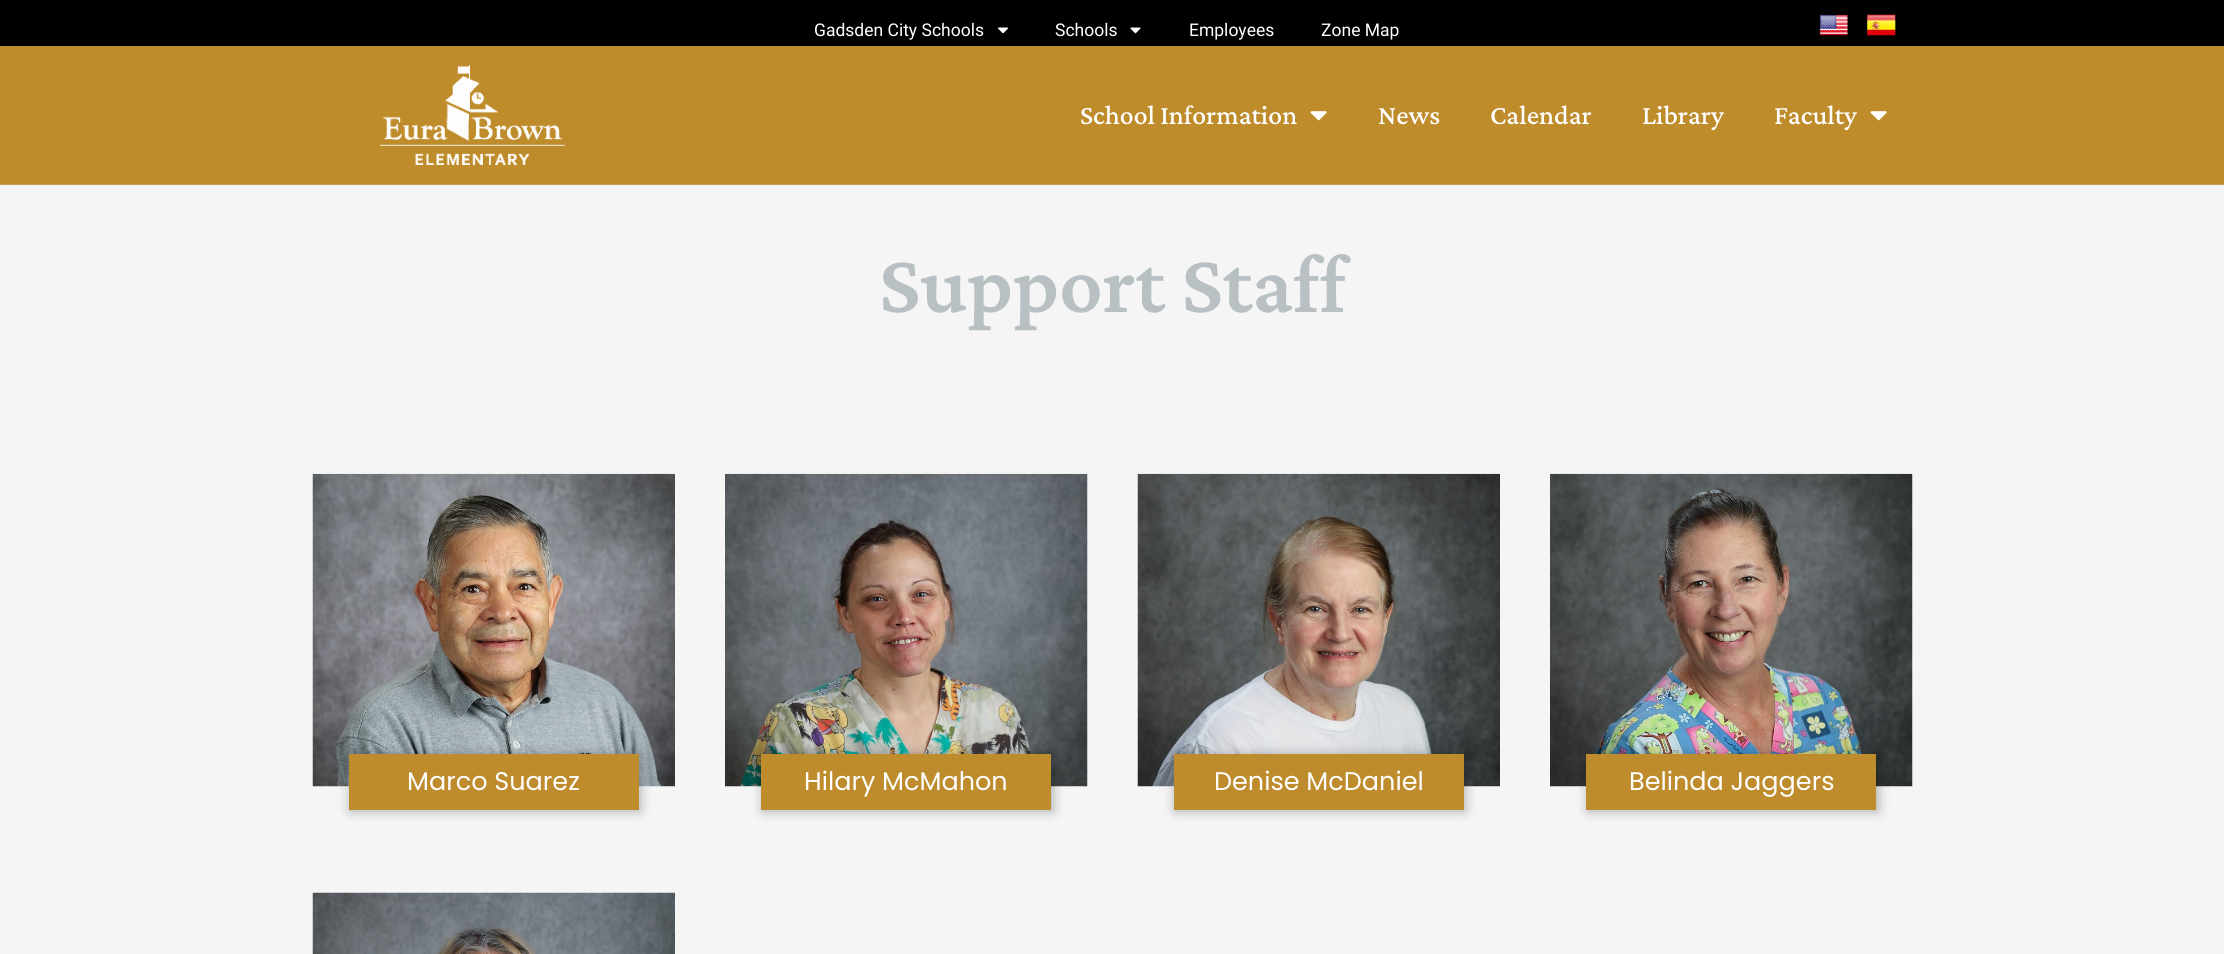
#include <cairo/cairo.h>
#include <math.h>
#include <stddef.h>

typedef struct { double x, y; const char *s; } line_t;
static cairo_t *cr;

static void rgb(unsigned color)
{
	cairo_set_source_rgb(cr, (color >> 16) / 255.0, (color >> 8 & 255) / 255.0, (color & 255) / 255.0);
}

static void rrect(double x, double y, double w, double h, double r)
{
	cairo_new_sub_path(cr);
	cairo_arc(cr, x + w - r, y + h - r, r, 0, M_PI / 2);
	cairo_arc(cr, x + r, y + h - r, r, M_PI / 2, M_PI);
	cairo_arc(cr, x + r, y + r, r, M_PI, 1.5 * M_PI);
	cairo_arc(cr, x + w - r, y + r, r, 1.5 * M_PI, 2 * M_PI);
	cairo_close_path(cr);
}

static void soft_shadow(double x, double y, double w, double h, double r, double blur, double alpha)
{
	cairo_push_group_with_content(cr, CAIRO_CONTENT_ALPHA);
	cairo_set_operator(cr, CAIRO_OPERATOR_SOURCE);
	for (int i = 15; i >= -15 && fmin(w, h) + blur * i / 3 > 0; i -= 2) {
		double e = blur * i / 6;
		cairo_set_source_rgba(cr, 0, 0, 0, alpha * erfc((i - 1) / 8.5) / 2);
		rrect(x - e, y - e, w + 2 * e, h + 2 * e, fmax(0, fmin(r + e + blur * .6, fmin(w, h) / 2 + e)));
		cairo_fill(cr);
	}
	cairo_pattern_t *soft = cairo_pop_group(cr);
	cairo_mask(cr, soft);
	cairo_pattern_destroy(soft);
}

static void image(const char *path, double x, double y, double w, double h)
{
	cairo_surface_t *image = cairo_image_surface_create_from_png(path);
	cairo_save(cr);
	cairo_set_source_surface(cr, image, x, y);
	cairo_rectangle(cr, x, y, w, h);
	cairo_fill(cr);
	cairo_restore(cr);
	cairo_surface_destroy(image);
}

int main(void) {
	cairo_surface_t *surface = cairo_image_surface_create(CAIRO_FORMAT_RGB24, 2224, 954);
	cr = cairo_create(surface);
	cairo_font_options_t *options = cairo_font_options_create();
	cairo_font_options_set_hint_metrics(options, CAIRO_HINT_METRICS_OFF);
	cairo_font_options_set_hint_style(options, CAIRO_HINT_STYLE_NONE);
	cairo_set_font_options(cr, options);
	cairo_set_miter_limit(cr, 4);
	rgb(0xf5f5f5);
	cairo_paint(cr);
	rgb(0x000000);
	cairo_rectangle(cr, 0, 0, 2224, 46);
	cairo_fill(cr);
	image("img/1.png", 997, 27, 11, 7);
	image("img/2.png", 1130, 27, 11, 7);
	image("img/3.png", 1819, 14, 29, 22);
	image("img/4.png", 1867, 14, 29, 22);
	rgb(0xbf8c2c);
	cairo_rectangle(cr, 0, 46, 2224, 138);
	cairo_fill(cr);
	rgb(0xc29e5b);
	cairo_rectangle(cr, 0, 184, 2224, 1);
	cairo_fill(cr);
	image("img/5.png", 380, 65, 185, 100);
	image("img/6.png", 1310, 111, 17, 10);
	image("img/6.png", 1870, 111, 17, 10);
	image("img/7.png", 312, 473, 363, 314);
	rgb(0x000000);
	soft_shadow(350, 755, 290, 56, 0, 6, 0.3);
	rgb(0xbf8c2d);
	cairo_rectangle(cr, 349, 754, 290, 56);
	cairo_fill(cr);
	image("img/8.png", 725, 473, 363, 314);
	rgb(0x000000);
	soft_shadow(763, 755, 290, 56, 0, 6, 0.3);
	rgb(0xbf8c2d);
	cairo_rectangle(cr, 761, 754, 290, 56);
	cairo_fill(cr);
	image("img/9.png", 1137, 473, 363, 314);
	rgb(0x000000);
	soft_shadow(1175, 755, 290, 56, 0, 6, 0.3);
	rgb(0xbf8c2d);
	cairo_rectangle(cr, 1174, 754, 290, 56);
	cairo_fill(cr);
	image("img/10.png", 1550, 473, 363, 314);
	rgb(0x000000);
	soft_shadow(1588, 755, 290, 56, 0, 6, 0.3);
	rgb(0xbf8c2d);
	cairo_rectangle(cr, 1586, 754, 290, 56);
	cairo_fill(cr);
	image("img/11.png", 312, 892, 363, 62);
	cairo_select_font_face(cr, "Roboto", CAIRO_FONT_SLANT_NORMAL, CAIRO_FONT_WEIGHT_NORMAL);
	cairo_set_font_size(cr, 17.5);
	rgb(0xffffff);
	{
		static const line_t items[] = {
			{814, 36, "Gadsden City Schools"},
			{1055, 36, "Schools"},
			{1189, 36, "Employees"},
			{1321, 36, "Zone Map"},
		};
		for (size_t i = 0; i < sizeof items / sizeof *items; i++) {
			cairo_move_to(cr, items[i].x, items[i].y);
			cairo_show_text(cr, items[i].s);
		}
	}
	cairo_select_font_face(cr, "Crimson Pro Medium", CAIRO_FONT_SLANT_NORMAL, CAIRO_FONT_WEIGHT_NORMAL);
	cairo_set_font_size(cr, 27.5);
	{
		static const line_t items[] = {
			{1080, 124, "School Information"},
			{1378, 124, "News"},
			{1490, 124, "Calendar"},
			{1642, 124, "Library"},
			{1774, 124, "Faculty"},
		};
		for (size_t i = 0; i < sizeof items / sizeof *items; i++) {
			cairo_move_to(cr, items[i].x, items[i].y);
			cairo_show_text(cr, items[i].s);
		}
	}
	cairo_select_font_face(cr, "Crimson Pro SemiBold", CAIRO_FONT_SLANT_NORMAL, CAIRO_FONT_WEIGHT_NORMAL);
	cairo_set_font_size(cr, 85);
	rgb(0xb9c0c3);
	cairo_move_to(cr, 879, 312);
	cairo_show_text(cr, "Support Staff");
	cairo_select_font_face(cr, "Poppins", CAIRO_FONT_SLANT_NORMAL, CAIRO_FONT_WEIGHT_NORMAL);
	cairo_set_font_size(cr, 25.5);
	rgb(0xffffff);
	{
		static const line_t items[] = {
			{407, 790, "Marco Suarez"},
			{804, 790, "Hilary McMahon"},
			{1214, 790, "Denise McDaniel"},
			{1629, 790, "Belinda Jaggers"},
		};
		for (size_t i = 0; i < sizeof items / sizeof *items; i++) {
			cairo_move_to(cr, items[i].x, items[i].y);
			cairo_show_text(cr, items[i].s);
		}
	}
	cairo_surface_write_to_png(surface, "page.png");
	cairo_font_options_destroy(options);
	cairo_destroy(cr);
	cairo_surface_destroy(surface);
	return 0;
}
